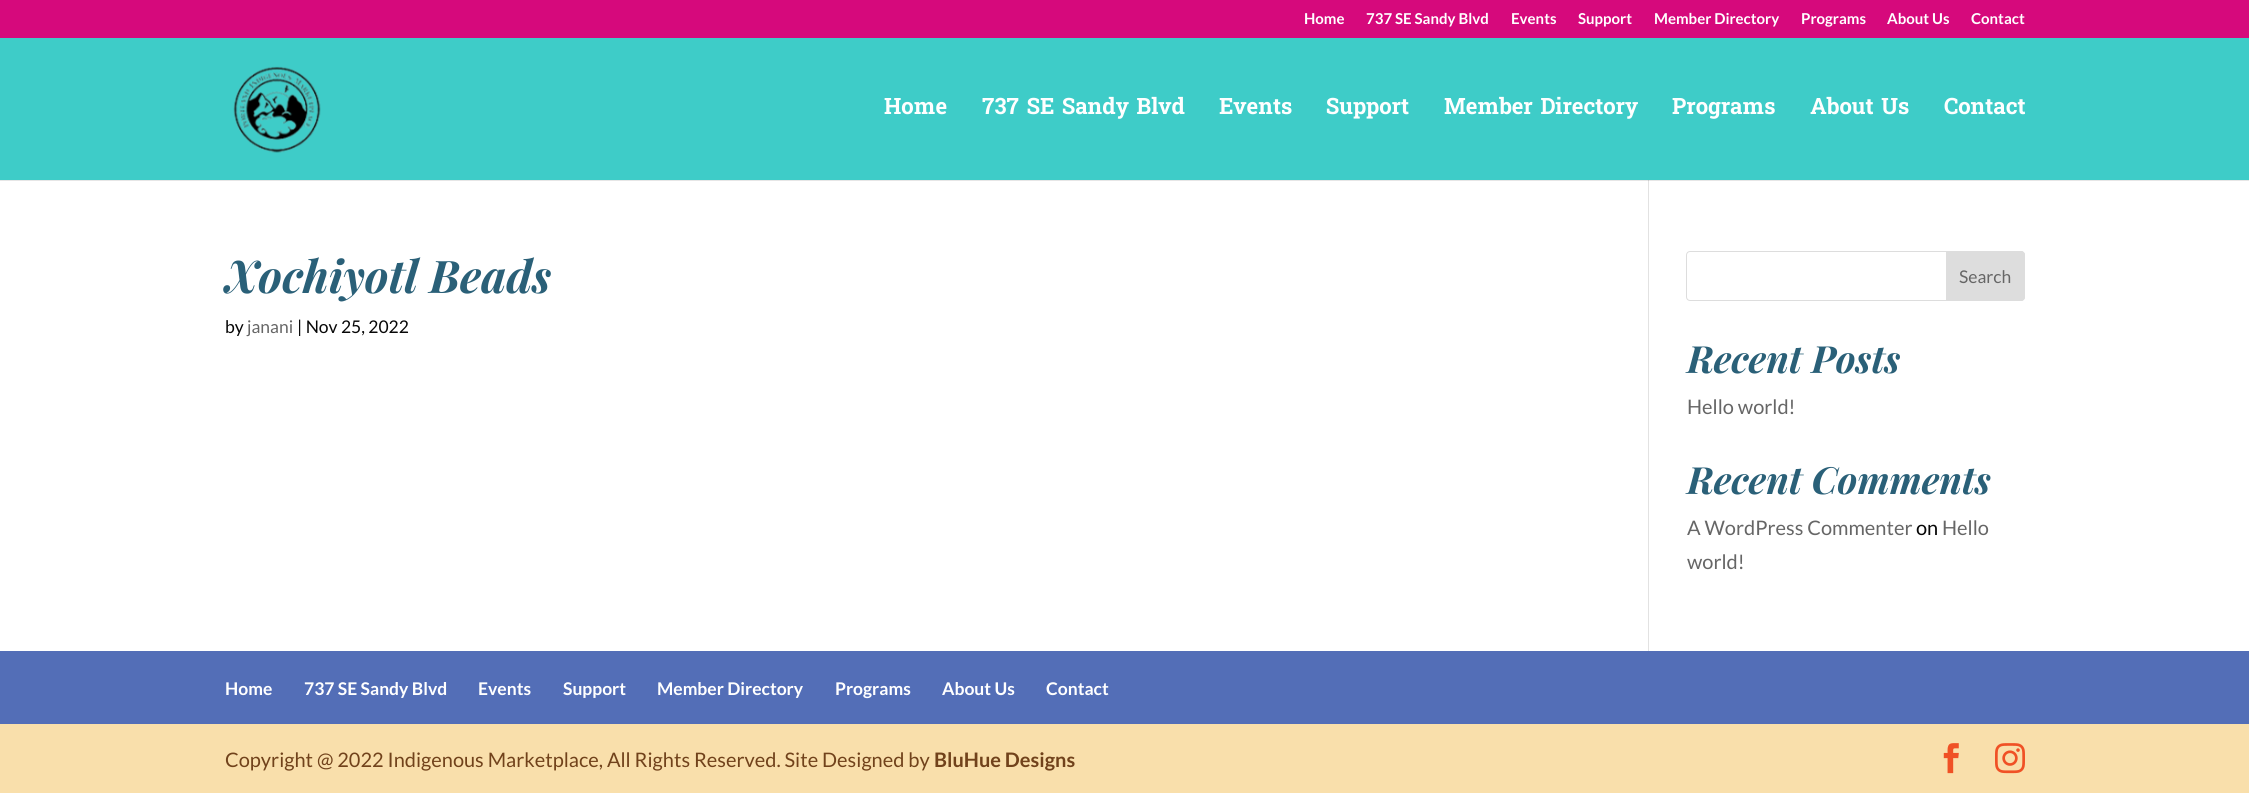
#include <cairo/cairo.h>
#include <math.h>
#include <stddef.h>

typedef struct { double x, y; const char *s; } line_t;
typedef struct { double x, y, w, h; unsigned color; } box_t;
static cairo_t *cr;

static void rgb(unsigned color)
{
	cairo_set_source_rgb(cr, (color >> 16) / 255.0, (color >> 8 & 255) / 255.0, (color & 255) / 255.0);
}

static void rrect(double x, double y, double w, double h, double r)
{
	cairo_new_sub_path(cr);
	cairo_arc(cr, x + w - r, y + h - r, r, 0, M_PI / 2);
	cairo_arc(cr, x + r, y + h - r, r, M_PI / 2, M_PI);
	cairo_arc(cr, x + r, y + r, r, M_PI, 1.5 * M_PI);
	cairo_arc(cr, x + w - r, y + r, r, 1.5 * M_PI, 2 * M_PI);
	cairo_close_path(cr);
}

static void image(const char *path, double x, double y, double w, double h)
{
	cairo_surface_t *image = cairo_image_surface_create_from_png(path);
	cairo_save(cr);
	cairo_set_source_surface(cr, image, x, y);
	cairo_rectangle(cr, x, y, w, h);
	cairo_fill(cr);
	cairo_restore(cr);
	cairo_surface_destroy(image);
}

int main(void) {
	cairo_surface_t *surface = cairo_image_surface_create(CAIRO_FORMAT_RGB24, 2249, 793);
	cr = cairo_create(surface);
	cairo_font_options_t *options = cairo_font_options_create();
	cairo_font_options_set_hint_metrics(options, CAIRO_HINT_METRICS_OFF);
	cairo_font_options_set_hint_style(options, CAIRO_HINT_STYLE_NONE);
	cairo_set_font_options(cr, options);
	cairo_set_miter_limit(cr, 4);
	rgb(0xffffff);
	cairo_paint(cr);
	{
		static const box_t items[] = {
			{0, 180, 2249, 1, 0xe6e6e6},
			{0, 0, 2249, 38, 0xd6097c},
			{1648, 179, 1, 472, 0xe2e2e2},
			{0, 38, 2249, 142, 0x3eccc8},
		};
		for (size_t i = 0; i < sizeof items / sizeof *items; i++) {
			rgb(items[i].color);
			cairo_rectangle(cr, items[i].x, items[i].y, items[i].w, items[i].h);
			cairo_fill(cr);
		}
	}
	image("img/1.png", 233, 66, 88, 87);
	rgb(0xcbcbcb);
	cairo_rectangle(cr, 1648, 180, 1, 1);
	cairo_fill(cr);
	rrect(1686.5, 251.5, 338, 49, 3.5);
	rgb(0xdddddd);
	cairo_set_line_width(cr, 1);
	cairo_stroke(cr);
	cairo_new_path(cr);
	cairo_move_to(cr, 1946.5, 251.5);
	cairo_line_to(cr, 2021, 251.5);
	cairo_curve_to(cr, 2023, 251.5, 2024.5, 253, 2024.5, 255);
	cairo_line_to(cr, 2024.5, 297);
	cairo_curve_to(cr, 2024.5, 299, 2023, 300.5, 2021, 300.5);
	cairo_line_to(cr, 1946.5, 300.5);
	cairo_close_path(cr);
	cairo_fill_preserve(cr);
	cairo_stroke(cr);
	rgb(0x536eb7);
	cairo_rectangle(cr, 0, 651, 2249, 73);
	cairo_fill(cr);
	rgb(0xf9dfab);
	cairo_rectangle(cr, 0, 724, 2249, 69);
	cairo_fill(cr);
	image("img/2.png", 1943, 743, 16, 31);
	image("img/3.png", 1995, 743, 30, 31);
	cairo_select_font_face(cr, "Lato", CAIRO_FONT_SLANT_NORMAL, CAIRO_FONT_WEIGHT_BOLD);
	cairo_set_font_size(cr, 15);
	rgb(0xffffff);
	{
		static const line_t items[] = {
			{1304, 24, "Home"},
			{1366, 24, "737 SE Sandy Blvd"},
			{1511, 24, "Events"},
			{1578, 24, "Support"},
			{1654, 24, "Member Directory"},
			{1801, 24, "Programs"},
			{1887, 24, "About Us"},
			{1971, 24, "Contact"},
		};
		for (size_t i = 0; i < sizeof items / sizeof *items; i++) {
			cairo_move_to(cr, items[i].x, items[i].y);
			cairo_show_text(cr, items[i].s);
		}
	}
	cairo_select_font_face(cr, "Hanuman", CAIRO_FONT_SLANT_NORMAL, CAIRO_FONT_WEIGHT_BOLD);
	cairo_set_font_size(cr, 22.5);
	{
		static const line_t items[] = {
			{884, 114, "Home"},
			{982, 114, "737 SE Sandy Blvd"},
			{1219, 114, "Events"},
			{1326, 114, "Support"},
			{1444, 114, "Member Directory"},
			{1672, 114, "Programs"},
			{1810, 114, "About Us"},
			{1944, 114, "Contact"},
		};
		for (size_t i = 0; i < sizeof items / sizeof *items; i++) {
			cairo_move_to(cr, items[i].x, items[i].y);
			cairo_show_text(cr, items[i].s);
		}
	}
	cairo_select_font_face(cr, "Playfair Display", CAIRO_FONT_SLANT_ITALIC, CAIRO_FONT_WEIGHT_BOLD);
	cairo_set_font_size(cr, 45);
	rgb(0x2a6078);
	cairo_move_to(cr, 225, 293);
	cairo_show_text(cr, "Xochiyotl Beads");
	cairo_select_font_face(cr, "Lato", CAIRO_FONT_SLANT_NORMAL, CAIRO_FONT_WEIGHT_NORMAL);
	cairo_set_font_size(cr, 17.5);
	rgb(0x070707);
	cairo_move_to(cr, 225, 333);
	cairo_show_text(cr, "by");
	rgb(0x666666);
	cairo_move_to(cr, 247, 333);
	cairo_show_text(cr, "janani");
	rgb(0x070707);
	cairo_move_to(cr, 297, 333);
	cairo_show_text(cr, "| Nov 25, 2022");
	rgb(0x666666);
	cairo_move_to(cr, 1959, 283);
	cairo_show_text(cr, "Search");
	cairo_select_font_face(cr, "Playfair Display", CAIRO_FONT_SLANT_ITALIC, CAIRO_FONT_WEIGHT_BOLD);
	cairo_set_font_size(cr, 37.5);
	rgb(0x2a6078);
	cairo_move_to(cr, 1687, 373);
	cairo_show_text(cr, "Recent Posts");
	cairo_select_font_face(cr, "Lato", CAIRO_FONT_SLANT_NORMAL, CAIRO_FONT_WEIGHT_NORMAL);
	cairo_set_font_size(cr, 20);
	rgb(0x666666);
	cairo_move_to(cr, 1687, 414);
	cairo_show_text(cr, "Hello world!");
	cairo_select_font_face(cr, "Playfair Display", CAIRO_FONT_SLANT_ITALIC, CAIRO_FONT_WEIGHT_BOLD);
	cairo_set_font_size(cr, 37.5);
	rgb(0x2a6078);
	cairo_move_to(cr, 1687, 494);
	cairo_show_text(cr, "Recent Comments");
	cairo_select_font_face(cr, "Lato", CAIRO_FONT_SLANT_NORMAL, CAIRO_FONT_WEIGHT_NORMAL);
	cairo_set_font_size(cr, 20);
	rgb(0x666666);
	cairo_move_to(cr, 1687, 535);
	cairo_show_text(cr, "A WordPress Commenter");
	rgb(0x070707);
	cairo_move_to(cr, 1916, 535);
	cairo_show_text(cr, "on");
	rgb(0x666666);
	cairo_move_to(cr, 1942, 535);
	cairo_show_text(cr, "Hello");
	cairo_move_to(cr, 1687, 569);
	cairo_show_text(cr, "world!");
	cairo_select_font_face(cr, "Lato", CAIRO_FONT_SLANT_NORMAL, CAIRO_FONT_WEIGHT_BOLD);
	cairo_set_font_size(cr, 17.5);
	rgb(0xffffff);
	{
		static const line_t items[] = {
			{225, 695, "Home"},
			{304, 695, "737 SE Sandy Blvd"},
			{478, 695, "Events"},
			{563, 695, "Support"},
			{657, 695, "Member Directory"},
			{835, 695, "Programs"},
			{942, 695, "About Us"},
			{1046, 695, "Contact"},
		};
		for (size_t i = 0; i < sizeof items / sizeof *items; i++) {
			cairo_move_to(cr, items[i].x, items[i].y);
			cairo_show_text(cr, items[i].s);
		}
	}
	cairo_select_font_face(cr, "Lato", CAIRO_FONT_SLANT_NORMAL, CAIRO_FONT_WEIGHT_NORMAL);
	cairo_set_font_size(cr, 20);
	rgb(0x71421b);
	cairo_move_to(cr, 225, 767);
	cairo_show_text(cr, "Copyright @ 2022 Indigenous Marketplace, All Rights Reserved. Site Designed by");
	cairo_select_font_face(cr, "Lato", CAIRO_FONT_SLANT_NORMAL, CAIRO_FONT_WEIGHT_BOLD);
	cairo_move_to(cr, 934, 767);
	cairo_show_text(cr, "BluHue Designs");
	cairo_surface_write_to_png(surface, "page.png");
	cairo_font_options_destroy(options);
	cairo_destroy(cr);
	cairo_surface_destroy(surface);
	return 0;
}
